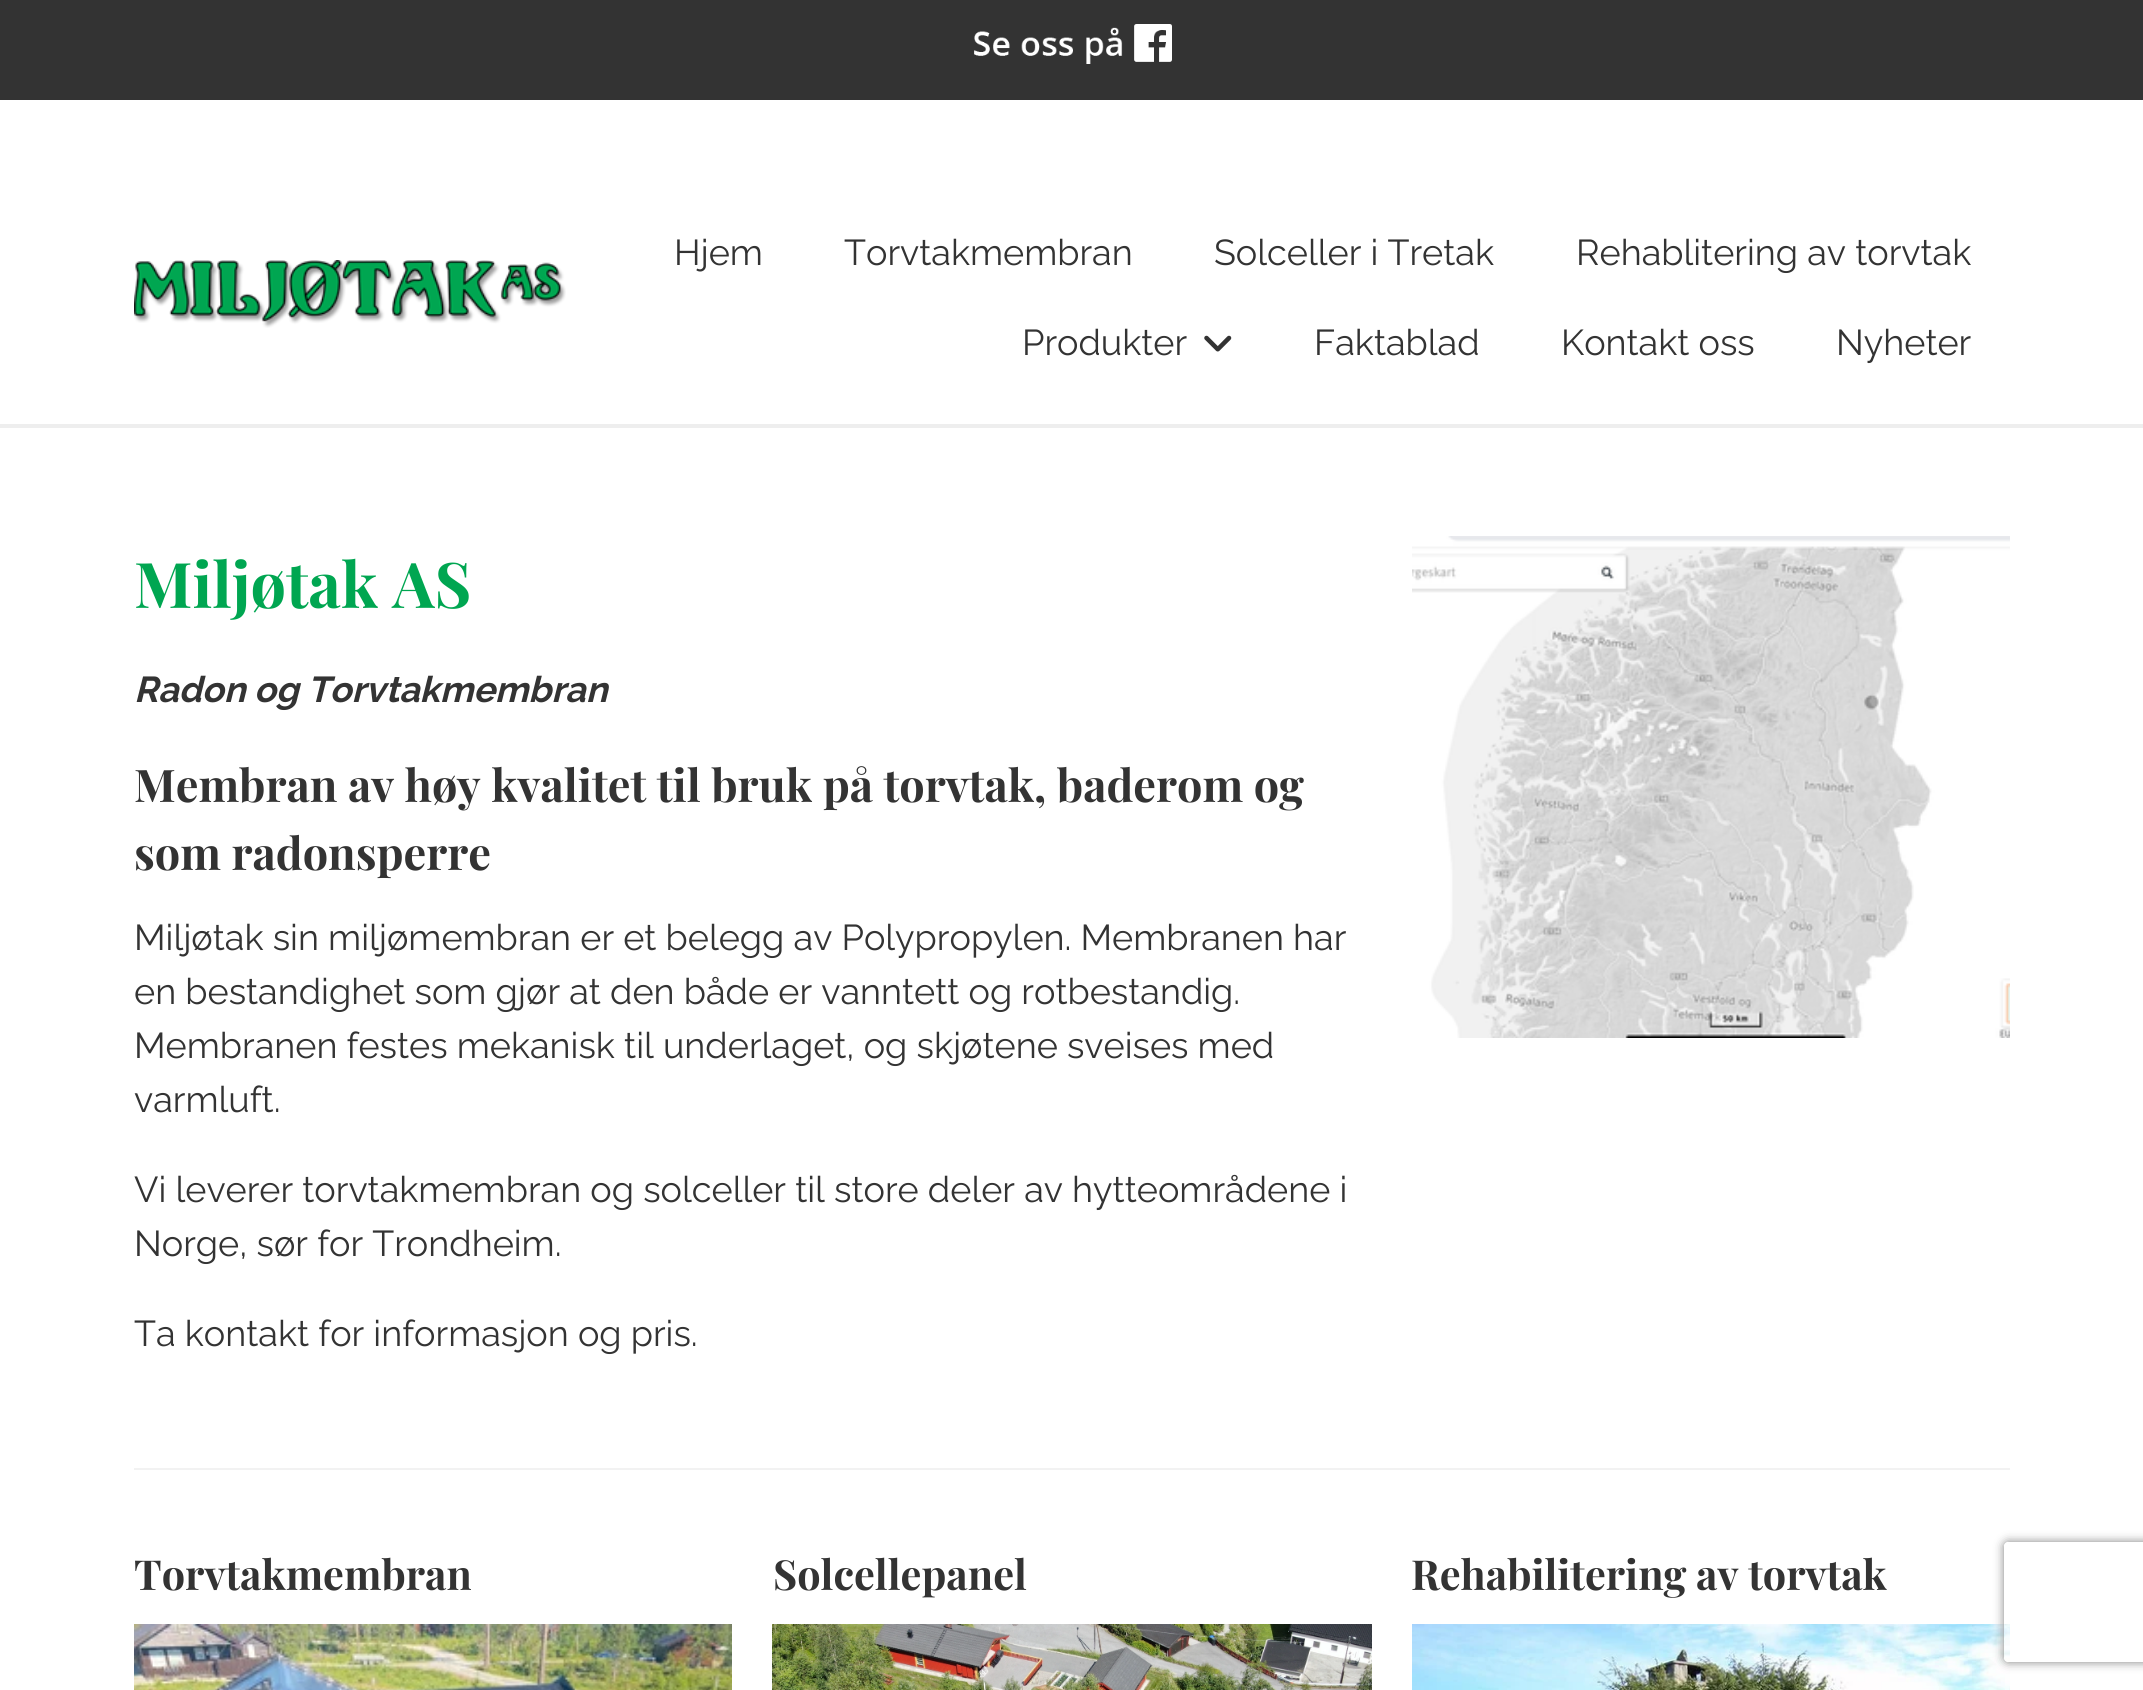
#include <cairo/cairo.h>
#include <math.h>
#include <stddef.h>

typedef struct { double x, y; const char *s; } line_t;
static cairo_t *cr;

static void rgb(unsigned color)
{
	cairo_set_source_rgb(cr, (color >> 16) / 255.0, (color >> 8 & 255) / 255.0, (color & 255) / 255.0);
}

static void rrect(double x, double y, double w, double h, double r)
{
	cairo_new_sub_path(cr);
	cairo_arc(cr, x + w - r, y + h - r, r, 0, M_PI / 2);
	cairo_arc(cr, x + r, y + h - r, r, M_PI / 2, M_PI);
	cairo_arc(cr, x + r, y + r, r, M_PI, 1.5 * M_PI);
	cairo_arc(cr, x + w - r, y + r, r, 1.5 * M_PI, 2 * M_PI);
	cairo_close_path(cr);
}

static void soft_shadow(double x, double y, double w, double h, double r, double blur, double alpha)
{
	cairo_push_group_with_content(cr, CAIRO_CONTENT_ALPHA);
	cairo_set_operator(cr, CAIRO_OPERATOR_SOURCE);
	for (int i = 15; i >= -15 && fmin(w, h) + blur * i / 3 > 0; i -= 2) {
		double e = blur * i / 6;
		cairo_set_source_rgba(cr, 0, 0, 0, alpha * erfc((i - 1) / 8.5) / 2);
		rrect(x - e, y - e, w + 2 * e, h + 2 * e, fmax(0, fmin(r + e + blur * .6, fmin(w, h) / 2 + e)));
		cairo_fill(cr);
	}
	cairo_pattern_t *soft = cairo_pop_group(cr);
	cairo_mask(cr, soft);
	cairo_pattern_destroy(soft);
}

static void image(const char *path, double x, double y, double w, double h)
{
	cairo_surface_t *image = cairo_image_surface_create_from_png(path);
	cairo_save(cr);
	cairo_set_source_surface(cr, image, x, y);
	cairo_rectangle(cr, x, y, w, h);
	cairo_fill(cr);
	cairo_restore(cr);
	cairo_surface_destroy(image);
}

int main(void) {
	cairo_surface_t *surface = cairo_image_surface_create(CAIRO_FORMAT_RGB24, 2143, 1690);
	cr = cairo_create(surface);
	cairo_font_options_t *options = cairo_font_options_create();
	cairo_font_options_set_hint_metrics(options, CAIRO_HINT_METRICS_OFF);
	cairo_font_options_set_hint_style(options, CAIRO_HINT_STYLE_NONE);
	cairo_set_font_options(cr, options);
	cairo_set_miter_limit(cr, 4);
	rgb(0xffffff);
	cairo_paint(cr);
	rgb(0xeeeeee);
	cairo_rectangle(cr, 0, 424, 2143, 4);
	cairo_fill(cr);
	image("img/1.png", 134, 260, 432, 68);
	image("img/2.png", 1204, 335, 28, 17);
	rgb(0x333333);
	cairo_rectangle(cr, 0, 0, 2143, 100);
	cairo_fill(cr);
	image("img/3.png", 974, 24, 198, 40);
	image("img/4.png", 1412, 536, 598, 502);
	rgb(0xf2f2f2);
	cairo_rectangle(cr, 134, 1468, 1876, 2);
	cairo_fill(cr);
	image("img/5.png", 134, 1624, 598, 66);
	image("img/6.png", 772, 1624, 600, 66);
	image("img/7.png", 1412, 1624, 598, 66);
	cairo_save(cr);
	cairo_set_fill_rule(cr, CAIRO_FILL_RULE_EVEN_ODD);
	cairo_new_path(cr);
	cairo_move_to(cr, 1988, 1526);
	cairo_line_to(cr, 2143, 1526);
	cairo_line_to(cr, 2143, 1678);
	cairo_line_to(cr, 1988, 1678);
	cairo_close_path(cr);
	cairo_move_to(cr, 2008, 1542);
	cairo_line_to(cr, 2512, 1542);
	cairo_curve_to(cr, 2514, 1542, 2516, 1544, 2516, 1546);
	cairo_line_to(cr, 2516, 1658);
	cairo_curve_to(cr, 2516, 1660, 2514, 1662, 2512, 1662);
	cairo_line_to(cr, 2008, 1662);
	cairo_curve_to(cr, 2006, 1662, 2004, 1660, 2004, 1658);
	cairo_line_to(cr, 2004, 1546);
	cairo_curve_to(cr, 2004, 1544, 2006, 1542, 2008, 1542);
	cairo_close_path(cr);
	cairo_clip(cr);
	rgb(0x808080);
	soft_shadow(2004, 1542, 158, 120, 4, 5, 1);
	cairo_restore(cr);
	cairo_select_font_face(cr, "Raleway", CAIRO_FONT_SLANT_NORMAL, CAIRO_FONT_WEIGHT_NORMAL);
	cairo_set_font_size(cr, 36);
	rgb(0x333333);
	{
		static const line_t items[] = {
			{674, 265, "Hjem"},
			{844, 265, "Torvtakmembran"},
			{1214, 265, "Solceller i Tretak"},
			{1576, 265, "Rehablitering av torvtak"},
			{1022, 355, "Produkter"},
			{1314, 355, "Faktablad"},
			{1561, 355, "Kontakt oss"},
			{1836, 355, "Nyheter"},
		};
		for (size_t i = 0; i < sizeof items / sizeof *items; i++) {
			cairo_move_to(cr, items[i].x, items[i].y);
			cairo_show_text(cr, items[i].s);
		}
	}
	cairo_select_font_face(cr, "Playfair Display", CAIRO_FONT_SLANT_NORMAL, CAIRO_FONT_WEIGHT_BOLD);
	cairo_set_font_size(cr, 63);
	rgb(0x00a651);
	cairo_move_to(cr, 134, 608);
	cairo_show_text(cr, "Miljøtak AS");
	cairo_select_font_face(cr, "Raleway", CAIRO_FONT_SLANT_ITALIC, CAIRO_FONT_WEIGHT_BOLD);
	cairo_set_font_size(cr, 36);
	rgb(0x333333);
	cairo_move_to(cr, 134, 702);
	cairo_show_text(cr, "Radon og Torvtakmembran");
	cairo_select_font_face(cr, "Playfair Display", CAIRO_FONT_SLANT_NORMAL, CAIRO_FONT_WEIGHT_BOLD);
	cairo_set_font_size(cr, 45);
	cairo_move_to(cr, 134, 802);
	cairo_show_text(cr, "Membran av høy kvalitet til bruk på torvtak, baderom og");
	cairo_move_to(cr, 134, 870);
	cairo_show_text(cr, "som radonsperre");
	cairo_select_font_face(cr, "Raleway", CAIRO_FONT_SLANT_NORMAL, CAIRO_FONT_WEIGHT_NORMAL);
	cairo_set_font_size(cr, 36);
	{
		static const line_t items[] = {
			{134, 950, "Miljøtak sin miljømembran er et belegg av Polypropylen. Membranen har"},
			{134, 1004, "en bestandighet som gjør at den både er vanntett og rotbestandig."},
			{134, 1058, "Membranen festes mekanisk til underlaget, og skjøtene sveises med"},
			{134, 1112, "varmluft."},
			{134, 1202, "Vi leverer torvtakmembran og solceller til store deler av hytteområdene i"},
			{134, 1256, "Norge, sør for Trondheim."},
			{134, 1346, "Ta kontakt for informasjon og pris."},
		};
		for (size_t i = 0; i < sizeof items / sizeof *items; i++) {
			cairo_move_to(cr, items[i].x, items[i].y);
			cairo_show_text(cr, items[i].s);
		}
	}
	cairo_select_font_face(cr, "Playfair Display", CAIRO_FONT_SLANT_NORMAL, CAIRO_FONT_WEIGHT_BOLD);
	cairo_set_font_size(cr, 41.4);
	{
		static const line_t items[] = {
			{134, 1590, "Torvtakmembran"},
			{773, 1590, "Solcellepanel"},
			{1411, 1590, "Rehabilitering av torvtak"},
		};
		for (size_t i = 0; i < sizeof items / sizeof *items; i++) {
			cairo_move_to(cr, items[i].x, items[i].y);
			cairo_show_text(cr, items[i].s);
		}
	}
	cairo_surface_write_to_png(surface, "page.png");
	cairo_font_options_destroy(options);
	cairo_destroy(cr);
	cairo_surface_destroy(surface);
	return 0;
}
